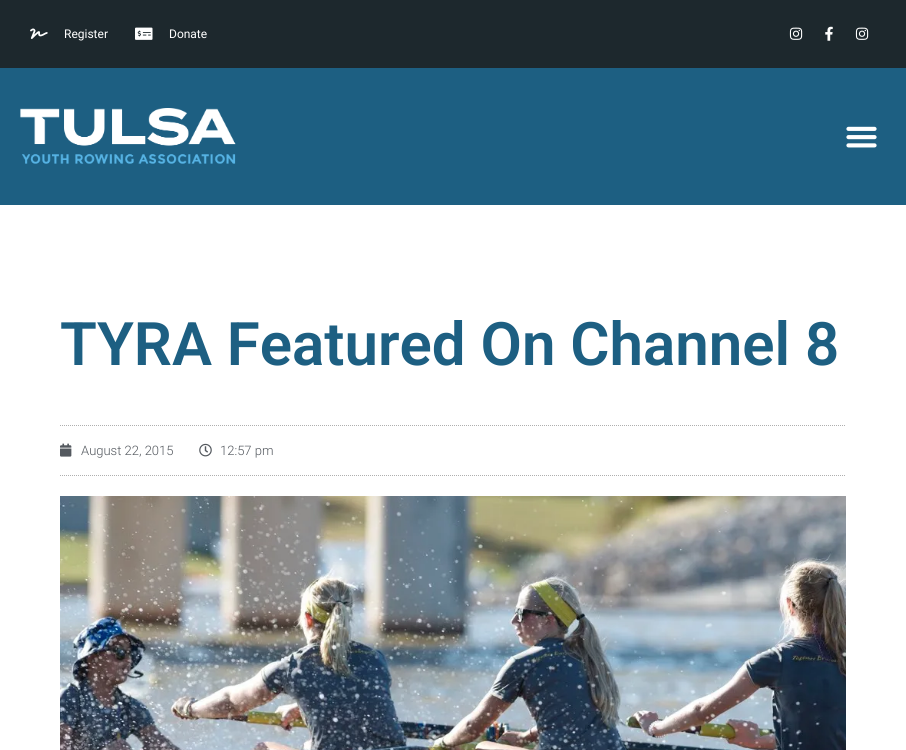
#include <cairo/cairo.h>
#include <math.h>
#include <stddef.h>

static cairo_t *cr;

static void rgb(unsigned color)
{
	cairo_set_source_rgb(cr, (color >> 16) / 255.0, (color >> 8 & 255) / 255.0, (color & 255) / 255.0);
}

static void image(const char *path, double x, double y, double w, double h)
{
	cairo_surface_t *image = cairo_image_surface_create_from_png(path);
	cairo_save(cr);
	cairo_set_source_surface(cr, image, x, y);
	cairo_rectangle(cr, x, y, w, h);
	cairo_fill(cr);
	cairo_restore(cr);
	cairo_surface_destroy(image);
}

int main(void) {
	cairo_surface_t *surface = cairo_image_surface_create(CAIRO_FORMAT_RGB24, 906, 750);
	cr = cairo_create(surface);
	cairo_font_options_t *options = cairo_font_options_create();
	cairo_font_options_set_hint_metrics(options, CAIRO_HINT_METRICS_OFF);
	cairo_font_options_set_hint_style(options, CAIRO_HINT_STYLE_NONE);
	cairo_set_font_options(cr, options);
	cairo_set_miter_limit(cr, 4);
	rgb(0xffffff);
	cairo_paint(cr);
	rgb(0x1d282d);
	cairo_rectangle(cr, 0, 0, 906, 68);
	cairo_fill(cr);
	image("img/1.png", 30, 28, 18, 11);
	image("img/2.png", 135, 27, 18, 13);
	image("img/3.png", 789, 27, 14, 13);
	image("img/4.png", 825, 26, 8, 15);
	image("img/3.png", 855, 27, 14, 13);
	rgb(0x1d5f82);
	cairo_rectangle(cr, 0, 68, 906, 137);
	cairo_fill(cr);
	image("img/5.png", 20, 108, 216, 56);
	image("img/6.png", 846, 126, 31, 22);
	cairo_new_path(cr);
	cairo_move_to(cr, 60, 425.5);
	cairo_line_to(cr, 846, 425.5);
	rgb(0xafafaf);
	cairo_set_line_width(cr, 1);
	cairo_set_dash(cr, (double[]){1, 1}, 2, 0);
	cairo_stroke(cr);
	cairo_new_path(cr);
	cairo_move_to(cr, 60, 475.5);
	cairo_line_to(cr, 846, 475.5);
	cairo_stroke(cr);
	image("img/7.png", 60, 443, 12, 14);
	image("img/8.png", 199, 443, 13, 14);
	image("img/9.png", 60, 496, 786, 254);
	cairo_select_font_face(cr, "Roboto", CAIRO_FONT_SLANT_NORMAL, CAIRO_FONT_WEIGHT_NORMAL);
	cairo_set_font_size(cr, 12);
	rgb(0xffffff);
	cairo_move_to(cr, 64, 38);
	cairo_show_text(cr, "Register");
	cairo_move_to(cr, 169, 38);
	cairo_show_text(cr, "Donate");
	cairo_select_font_face(cr, "Roboto SemiBold", CAIRO_FONT_SLANT_NORMAL, CAIRO_FONT_WEIGHT_NORMAL);
	cairo_set_font_size(cr, 60);
	rgb(0x1d5f82);
	cairo_move_to(cr, 60, 365);
	cairo_show_text(cr, "TYRA Featured On Channel 8");
	cairo_select_font_face(cr, "Roboto Light", CAIRO_FONT_SLANT_NORMAL, CAIRO_FONT_WEIGHT_NORMAL);
	cairo_set_font_size(cr, 13);
	rgb(0x54595f);
	cairo_move_to(cr, 81, 455);
	cairo_show_text(cr, "August 22, 2015");
	cairo_move_to(cr, 220, 455);
	cairo_show_text(cr, "12:57 pm");
	cairo_surface_write_to_png(surface, "page.png");
	cairo_font_options_destroy(options);
	cairo_destroy(cr);
	cairo_surface_destroy(surface);
	return 0;
}
